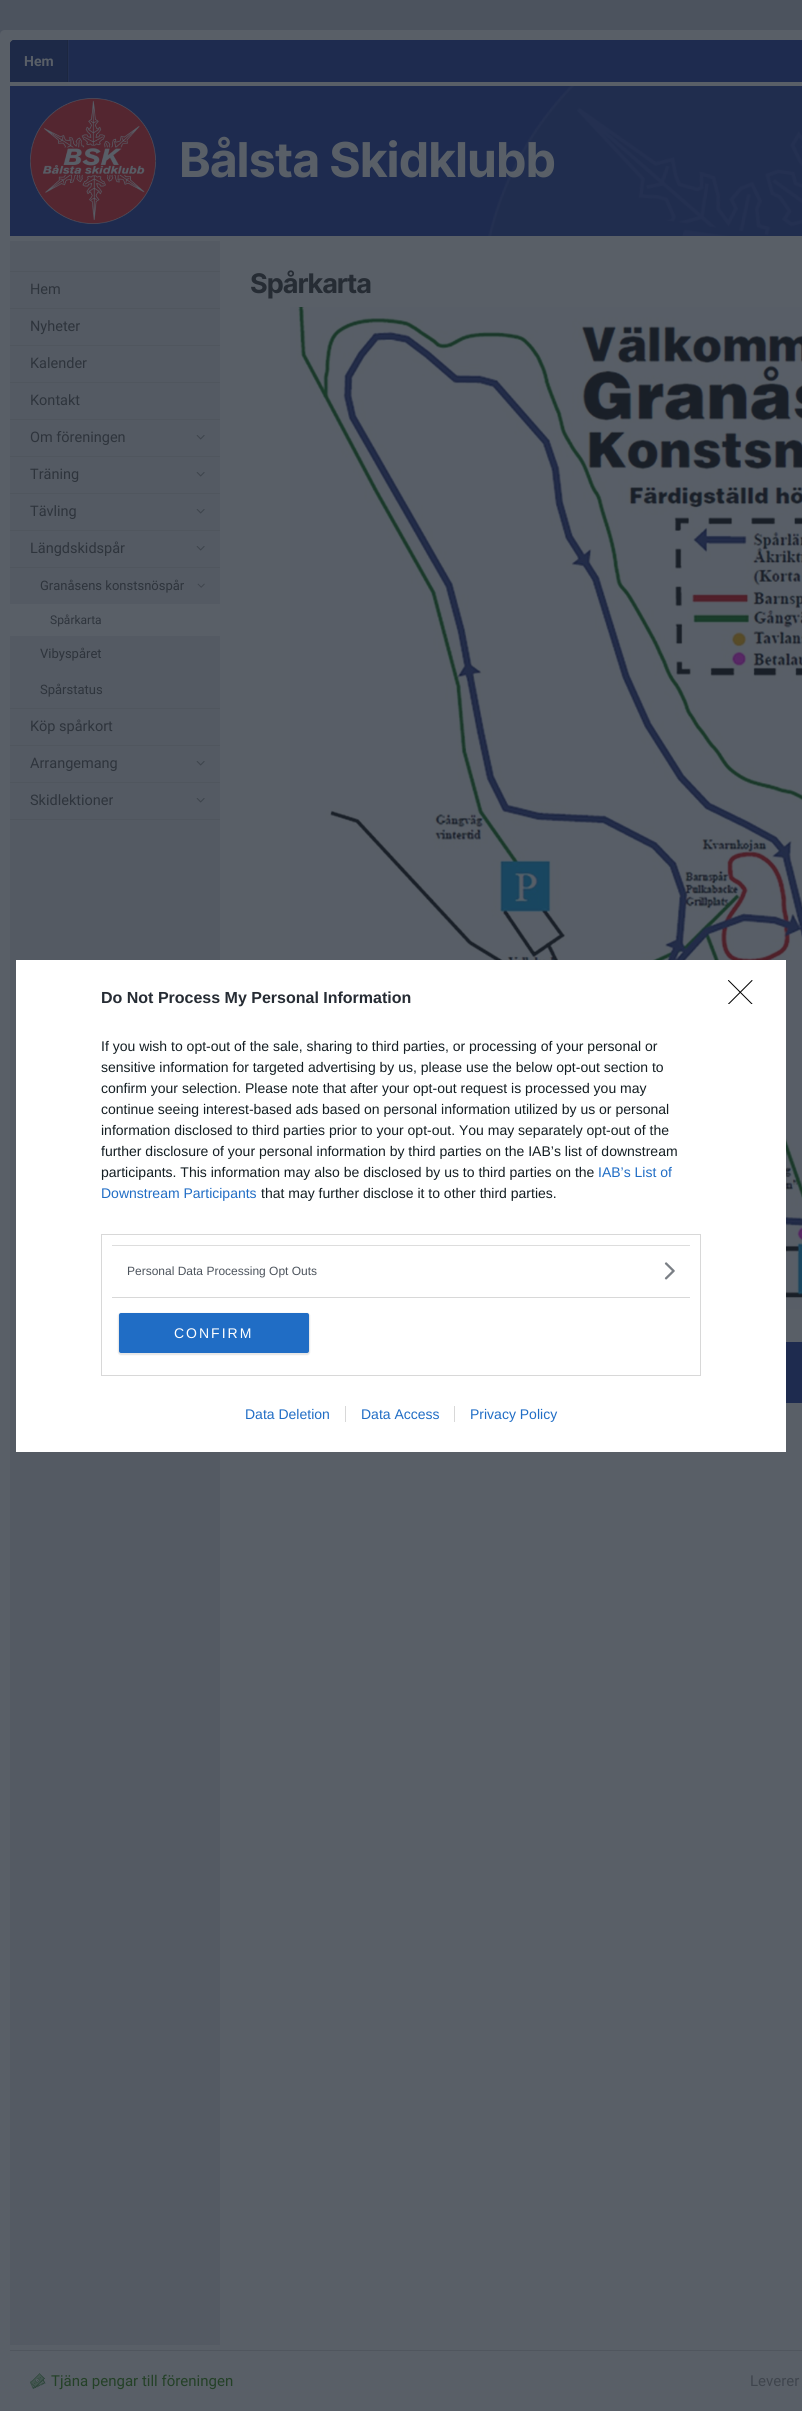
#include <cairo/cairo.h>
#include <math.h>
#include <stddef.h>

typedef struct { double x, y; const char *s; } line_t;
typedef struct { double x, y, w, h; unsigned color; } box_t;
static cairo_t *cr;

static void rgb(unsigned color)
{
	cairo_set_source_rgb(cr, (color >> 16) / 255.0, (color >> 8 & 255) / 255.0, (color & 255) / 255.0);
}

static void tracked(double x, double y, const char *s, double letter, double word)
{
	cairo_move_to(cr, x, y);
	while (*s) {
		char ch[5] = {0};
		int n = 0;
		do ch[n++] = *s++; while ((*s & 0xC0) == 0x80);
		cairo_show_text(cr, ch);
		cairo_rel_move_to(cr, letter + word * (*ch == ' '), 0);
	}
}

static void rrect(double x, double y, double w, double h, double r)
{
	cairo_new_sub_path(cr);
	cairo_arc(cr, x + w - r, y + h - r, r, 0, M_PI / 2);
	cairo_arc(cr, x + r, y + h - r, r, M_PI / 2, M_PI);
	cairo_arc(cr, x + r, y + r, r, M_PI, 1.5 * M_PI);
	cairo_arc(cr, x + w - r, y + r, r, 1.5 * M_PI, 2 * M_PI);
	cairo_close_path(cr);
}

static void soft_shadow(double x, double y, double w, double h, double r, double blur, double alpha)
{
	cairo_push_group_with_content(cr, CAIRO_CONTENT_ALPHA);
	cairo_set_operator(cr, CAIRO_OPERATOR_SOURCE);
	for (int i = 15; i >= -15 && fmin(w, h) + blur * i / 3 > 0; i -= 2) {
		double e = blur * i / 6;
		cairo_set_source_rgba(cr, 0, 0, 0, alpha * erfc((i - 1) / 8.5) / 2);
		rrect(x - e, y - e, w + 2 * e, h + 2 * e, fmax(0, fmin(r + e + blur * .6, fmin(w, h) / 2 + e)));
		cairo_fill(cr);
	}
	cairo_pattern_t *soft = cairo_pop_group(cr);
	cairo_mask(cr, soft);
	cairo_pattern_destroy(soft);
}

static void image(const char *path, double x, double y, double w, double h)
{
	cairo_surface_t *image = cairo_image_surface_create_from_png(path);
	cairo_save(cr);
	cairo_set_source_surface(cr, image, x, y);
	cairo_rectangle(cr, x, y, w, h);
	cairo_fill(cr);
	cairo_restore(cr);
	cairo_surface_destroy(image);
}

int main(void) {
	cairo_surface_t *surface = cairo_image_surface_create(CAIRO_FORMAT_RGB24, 802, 2411);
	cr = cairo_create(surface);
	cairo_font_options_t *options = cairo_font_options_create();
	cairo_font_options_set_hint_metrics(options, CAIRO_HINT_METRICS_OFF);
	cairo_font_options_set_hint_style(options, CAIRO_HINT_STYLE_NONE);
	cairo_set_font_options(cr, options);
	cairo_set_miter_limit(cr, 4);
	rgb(0x4c535e);
	cairo_paint(cr);
	rgb(0x595f67);
	cairo_new_path(cr);
	cairo_move_to(cr, 5, 30);
	cairo_line_to(cr, 802, 30);
	cairo_curve_to(cr, 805, 30, 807, 32, 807, 35);
	cairo_line_to(cr, 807, 2411);
	cairo_line_to(cr, 0, 2411);
	cairo_line_to(cr, 0, 35);
	cairo_curve_to(cr, 0, 32, 2, 30, 5, 30);
	cairo_close_path(cr);
	cairo_fill(cr);
	rgb(0x1e2b4f);
	cairo_new_path(cr);
	cairo_move_to(cr, 14, 40);
	cairo_line_to(cr, 802, 40);
	cairo_curve_to(cr, 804, 40, 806, 42, 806, 44);
	cairo_line_to(cr, 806, 82);
	cairo_line_to(cr, 10, 82);
	cairo_line_to(cr, 10, 44);
	cairo_curve_to(cr, 10, 42, 12, 40, 14, 40);
	cairo_close_path(cr);
	cairo_fill(cr);
	rgb(0x243051);
	cairo_rectangle(cr, 68, 40, 1, 42);
	cairo_fill(cr);
	rgb(0x1d2947);
	cairo_new_path(cr);
	cairo_move_to(cr, 14, 40);
	cairo_line_to(cr, 68, 40);
	cairo_line_to(cr, 68, 82);
	cairo_line_to(cr, 10, 82);
	cairo_line_to(cr, 10, 44);
	cairo_curve_to(cr, 10, 42, 12, 40, 14, 40);
	cairo_close_path(cr);
	cairo_fill(cr);
	rgb(0x1c2740);
	cairo_rectangle(cr, 67, 40, 1, 42);
	cairo_fill(cr);
	rgb(0x1e2b4f);
	cairo_rectangle(cr, 10, 86, 792, 150);
	cairo_fill(cr);
	image("img/1.png", 30, 86, 772, 150);
	{
		static const box_t items[] = {
			{10, 241, 210, 2104, 0x545a63},
			{10, 271, 210, 1, 0x50565e},
			{10, 308, 210, 1, 0x50565e},
			{10, 345, 210, 1, 0x50565e},
			{10, 382, 210, 1, 0x50565e},
			{10, 419, 210, 1, 0x50565e},
			{10, 456, 210, 1, 0x50565e},
		};
		for (size_t i = 0; i < sizeof items / sizeof *items; i++) {
			rgb(items[i].color);
			cairo_rectangle(cr, items[i].x, items[i].y, items[i].w, items[i].h);
			cairo_fill(cr);
		}
	}
	image("img/2.png", 196, 435, 9, 5);
	cairo_rectangle(cr, 10, 493, 210, 1);
	cairo_fill(cr);
	image("img/2.png", 196, 472, 9, 5);
	cairo_rectangle(cr, 10, 530, 210, 1);
	cairo_fill(cr);
	image("img/2.png", 196, 509, 9, 5);
	cairo_rectangle(cr, 10, 567, 210, 1);
	cairo_fill(cr);
	image("img/2.png", 196, 546, 9, 5);
	cairo_rectangle(cr, 10, 708, 210, 1);
	cairo_fill(cr);
	image("img/3.png", 197, 583, 8, 5);
	{
		static const box_t items[] = {
			{10, 604, 210, 32, 0x595f67},
			{10, 745, 210, 1, 0x50565e},
			{10, 782, 210, 1, 0x50565e},
		};
		for (size_t i = 0; i < sizeof items / sizeof *items; i++) {
			rgb(items[i].color);
			cairo_rectangle(cr, items[i].x, items[i].y, items[i].w, items[i].h);
			cairo_fill(cr);
		}
	}
	image("img/2.png", 196, 761, 9, 5);
	cairo_rectangle(cr, 10, 819, 210, 1);
	cairo_fill(cr);
	image("img/2.png", 196, 798, 9, 5);
	image("img/4.png", 290, 307, 512, 1002);
	rgb(0x1e2b4f);
	cairo_rectangle(cr, 786, 1342, 16, 61);
	cairo_fill(cr);
	rgb(0x50565e);
	cairo_rectangle(cr, 10, 2350, 792, 1);
	cairo_fill(cr);
	image("img/5.png", 30, 2373, 16, 16);
	rgb(0xffffff);
	cairo_rectangle(cr, 16, 960, 770, 492);
	cairo_fill(cr);
	cairo_rectangle(cr, 101.5, 1234.5, 599, 141);
	rgb(0xd8d8d8);
	cairo_set_line_width(cr, 1);
	cairo_stroke(cr);
	rgb(0xdddddd);
	cairo_rectangle(cr, 112, 1245, 578, 1);
	cairo_fill(cr);
	rgb(0xd8d8d8);
	cairo_rectangle(cr, 112, 1297, 578, 1);
	cairo_fill(cr);
	image("img/6.png", 664, 1262, 11, 18);
	rgb(0x000000);
	soft_shadow(118, 1313, 192, 42, 3, 0.5, 0.1);
	rgb(0x206dc5);
	rrect(119, 1313, 190, 40, 2);
	cairo_fill(cr);
	cairo_save(cr);
	cairo_rectangle(cr, 728, 980, 25, 24);
	cairo_clip(cr);
	cairo_new_path(cr);
	cairo_move_to(cr, 728.5, 980.5);
	cairo_line_to(cr, 752, 1004);
	cairo_move_to(cr, 752, 980.5);
	cairo_line_to(cr, 728.5, 1004);
	rgb(0x000000);
	cairo_set_line_cap(cr, CAIRO_LINE_CAP_ROUND);
	cairo_set_line_join(cr, CAIRO_LINE_JOIN_ROUND);
	cairo_stroke(cr);
	cairo_restore(cr);
	rgb(0xd8d8d8);
	cairo_rectangle(cr, 345, 1406, 1, 16);
	cairo_fill(cr);
	cairo_rectangle(cr, 454, 1406, 1, 16);
	cairo_fill(cr);
	cairo_select_font_face(cr, "Roboto", CAIRO_FONT_SLANT_NORMAL, CAIRO_FONT_WEIGHT_BOLD);
	cairo_set_font_size(cr, 14);
	rgb(0x595f67);
	cairo_move_to(cr, 24, 66);
	cairo_show_text(cr, "Hem");
	cairo_select_font_face(cr, "Inter", CAIRO_FONT_SLANT_NORMAL, CAIRO_FONT_WEIGHT_BOLD);
	cairo_set_font_size(cr, 48);
	tracked(179, 177, "Bålsta Skidklubb", -1, 0);
	cairo_select_font_face(cr, "Roboto", CAIRO_FONT_SLANT_NORMAL, CAIRO_FONT_WEIGHT_NORMAL);
	cairo_set_font_size(cr, 14.5);
	rgb(0x2e343c);
	{
		static const line_t items[] = {
			{30, 294, "Hem"},
			{30, 331, "Nyheter"},
			{30, 368, "Kalender"},
			{30, 405, "Kontakt"},
			{30, 442, "Om föreningen"},
			{30, 479, "Träning"},
			{30, 516, "Tävling"},
			{30, 553, "Längdskidspår"},
		};
		for (size_t i = 0; i < sizeof items / sizeof *items; i++) {
			cairo_move_to(cr, items[i].x, items[i].y);
			cairo_show_text(cr, items[i].s);
		}
	}
	cairo_set_font_size(cr, 13);
	cairo_move_to(cr, 40, 590);
	cairo_show_text(cr, "Granåsens konstsnöspår");
	cairo_set_font_size(cr, 12);
	cairo_move_to(cr, 50, 624);
	cairo_show_text(cr, "Spårkarta");
	cairo_set_font_size(cr, 13);
	cairo_move_to(cr, 40, 658);
	cairo_show_text(cr, "Vibyspåret");
	cairo_move_to(cr, 40, 694);
	cairo_show_text(cr, "Spårstatus");
	cairo_set_font_size(cr, 14.5);
	{
		static const line_t items[] = {
			{30, 731, "Köp spårkort"},
			{30, 768, "Arrangemang"},
			{30, 805, "Skidlektioner"},
		};
		for (size_t i = 0; i < sizeof items / sizeof *items; i++) {
			cairo_move_to(cr, items[i].x, items[i].y);
			cairo_show_text(cr, items[i].s);
		}
	}
	cairo_select_font_face(cr, "Inter", CAIRO_FONT_SLANT_NORMAL, CAIRO_FONT_WEIGHT_BOLD);
	cairo_set_font_size(cr, 27);
	rgb(0x262c34);
	tracked(250, 293, "Spårkarta", -1, 0);
	cairo_select_font_face(cr, "Roboto", CAIRO_FONT_SLANT_NORMAL, CAIRO_FONT_WEIGHT_NORMAL);
	cairo_set_font_size(cr, 15);
	rgb(0x244127);
	cairo_move_to(cr, 51, 2386);
	cairo_show_text(cr, "Tjäna pengar till föreningen");
	rgb(0x3f454d);
	cairo_move_to(cr, 750, 2386);
	cairo_show_text(cr, "Leverer");
	cairo_select_font_face(cr, "Liberation Sans", CAIRO_FONT_SLANT_NORMAL, CAIRO_FONT_WEIGHT_BOLD);
	cairo_set_font_size(cr, 16);
	rgb(0x262c34);
	cairo_move_to(cr, 101, 1003);
	cairo_show_text(cr, "Do Not Process My Personal Information");
	cairo_select_font_face(cr, "Liberation Sans", CAIRO_FONT_SLANT_NORMAL, CAIRO_FONT_WEIGHT_NORMAL);
	cairo_set_font_size(cr, 14);
	rgb(0x141e23);
	{
		static const line_t items[] = {
			{101, 1051, "If you wish to opt-out of the sale, sharing to third parties, or processing of your personal or"},
			{101, 1072, "sensitive information for targeted advertising by us, please use the below opt-out section to"},
			{101, 1093, "confirm your selection. Please note that after your opt-out request is processed you may"},
			{101, 1114, "continue seeing interest-based ads based on personal information utilized by us or personal"},
			{101, 1135, "information disclosed to third parties prior to your opt-out. You may separately opt-out of the"},
			{101, 1156, "further disclosure of your personal information by third parties on the IAB’s list of downstream"},
			{101, 1177, "participants. This information may also be disclosed by us to third parties on the"},
		};
		for (size_t i = 0; i < sizeof items / sizeof *items; i++) {
			cairo_move_to(cr, items[i].x, items[i].y);
			cairo_show_text(cr, items[i].s);
		}
	}
	rgb(0x206dc5);
	cairo_move_to(cr, 598, 1177);
	cairo_show_text(cr, "IAB’s List of");
	cairo_move_to(cr, 101, 1198);
	cairo_show_text(cr, "Downstream Participants");
	rgb(0x141e23);
	cairo_move_to(cr, 261, 1198);
	cairo_show_text(cr, "that may further disclose it to other third parties.");
	cairo_set_font_size(cr, 12);
	rgb(0x4d545d);
	cairo_move_to(cr, 127, 1275);
	cairo_show_text(cr, "Personal Data Processing Opt Outs");
	cairo_set_font_size(cr, 14);
	rgb(0xffffff);
	tracked(174, 1338, "CONFIRM", 2, 0);
	rgb(0x206dc5);
	{
		static const line_t items[] = {
			{245, 1419, "Data Deletion"},
			{361, 1419, "Data Access"},
			{470, 1419, "Privacy Policy"},
		};
		for (size_t i = 0; i < sizeof items / sizeof *items; i++) {
			cairo_move_to(cr, items[i].x, items[i].y);
			cairo_show_text(cr, items[i].s);
		}
	}
	cairo_surface_write_to_png(surface, "page.png");
	cairo_font_options_destroy(options);
	cairo_destroy(cr);
	cairo_surface_destroy(surface);
	return 0;
}
